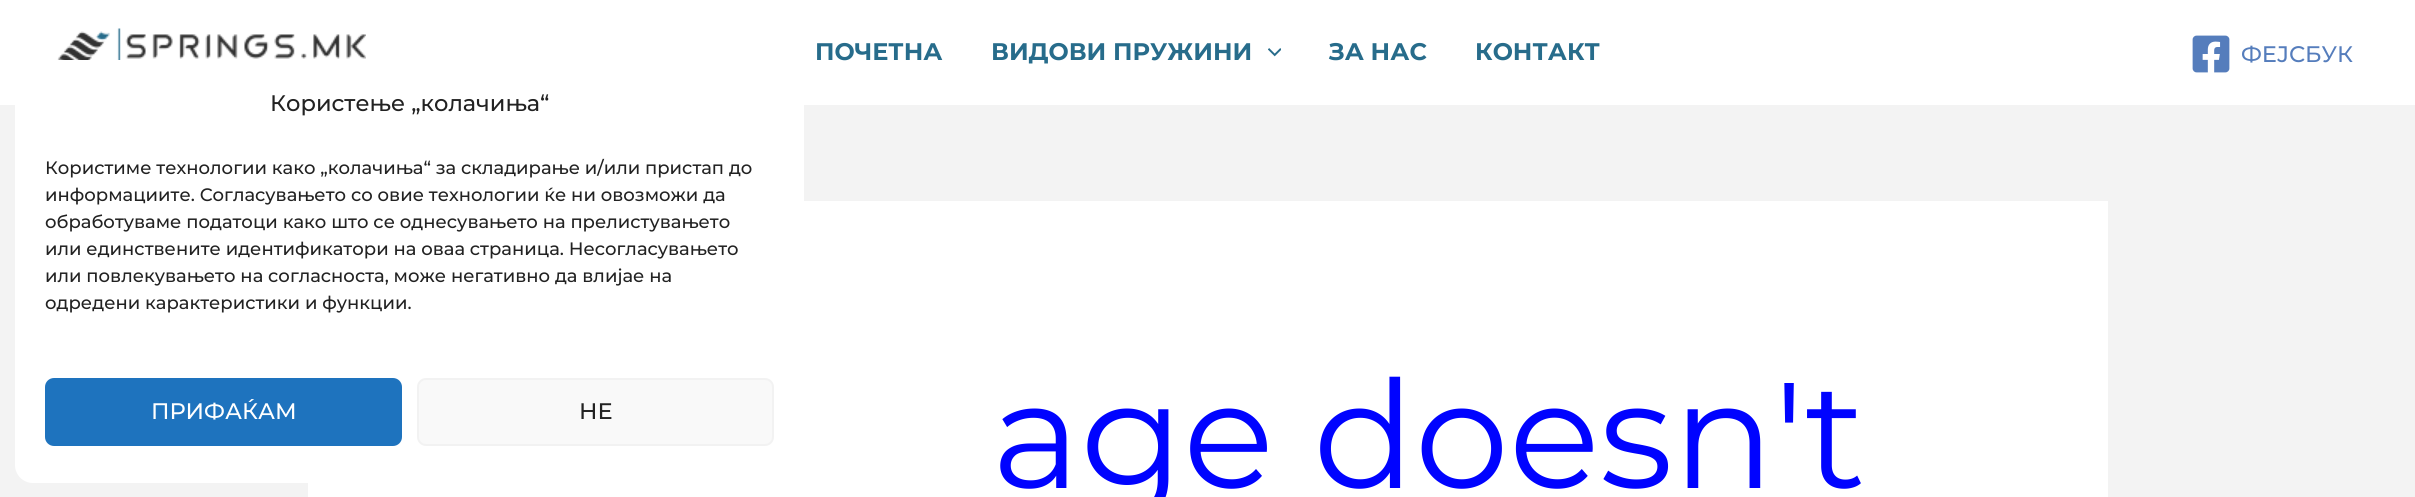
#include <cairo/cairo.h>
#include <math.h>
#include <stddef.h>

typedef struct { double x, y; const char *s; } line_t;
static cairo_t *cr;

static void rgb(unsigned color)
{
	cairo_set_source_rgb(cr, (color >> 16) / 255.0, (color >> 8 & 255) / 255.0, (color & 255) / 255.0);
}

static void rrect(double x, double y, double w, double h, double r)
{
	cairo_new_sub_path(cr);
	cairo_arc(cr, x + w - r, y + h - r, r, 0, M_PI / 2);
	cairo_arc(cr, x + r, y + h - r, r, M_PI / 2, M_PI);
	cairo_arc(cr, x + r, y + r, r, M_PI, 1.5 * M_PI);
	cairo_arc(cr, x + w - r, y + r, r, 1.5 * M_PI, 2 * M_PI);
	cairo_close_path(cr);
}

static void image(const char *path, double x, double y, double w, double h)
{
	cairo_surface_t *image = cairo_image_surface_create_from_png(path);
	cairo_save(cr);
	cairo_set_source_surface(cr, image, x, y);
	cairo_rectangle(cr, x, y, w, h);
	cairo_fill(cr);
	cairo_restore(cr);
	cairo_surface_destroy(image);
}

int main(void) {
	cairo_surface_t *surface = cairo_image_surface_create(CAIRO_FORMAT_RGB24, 2415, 497);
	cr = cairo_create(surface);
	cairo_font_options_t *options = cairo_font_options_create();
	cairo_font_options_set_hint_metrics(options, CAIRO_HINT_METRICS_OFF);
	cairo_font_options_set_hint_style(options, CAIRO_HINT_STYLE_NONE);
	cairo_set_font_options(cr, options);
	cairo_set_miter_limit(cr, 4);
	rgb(0xf3f3f3);
	cairo_paint(cr);
	rgb(0xffffff);
	cairo_rectangle(cr, 0, 0, 2415, 105);
	cairo_fill(cr);
	cairo_rectangle(cr, 308, 201, 1800, 296);
	cairo_fill(cr);
	rrect(15, 60, 789, 423, 18);
	cairo_fill(cr);
	rgb(0x1e73be);
	rrect(46, 379, 355, 66, 8);
	cairo_fill_preserve(cr);
	cairo_stroke(cr);
	rgb(0xf9f9f9);
	rrect(418, 379, 355, 66, 8);
	cairo_fill_preserve(cr);
	rgb(0xf2f2f2);
	cairo_stroke(cr);
	image("img/1.png", 57, 28, 309, 32);
	image("img/2.png", 1268, 48, 13, 9);
	image("img/3.png", 2192, 35, 38, 38);
	cairo_select_font_face(cr, "Montserrat Medium", CAIRO_FONT_SLANT_NORMAL, CAIRO_FONT_WEIGHT_NORMAL);
	cairo_set_font_size(cr, 22.5);
	rgb(0x222222);
	cairo_move_to(cr, 270, 111);
	cairo_show_text(cr, "Користење „колачиња“");
	cairo_set_font_size(cr, 18);
	{
		static const line_t items[] = {
			{45, 174, "Користиме технологии како „колачиња“ за складирање и/или пристап до"},
			{45, 201, "информациите. Согласувањето со овие технологии ќе ни овозможи да"},
			{45, 228, "обработуваме податоци како што се однесувањето на прелистувањето"},
			{45, 255, "или единствените идентификатори на оваа страница. Несогласувањето"},
			{45, 282, "или повлекувањето на согласноста, може негативно да влијае на"},
			{45, 309, "одредени карактеристики и функции."},
		};
		for (size_t i = 0; i < sizeof items / sizeof *items; i++) {
			cairo_move_to(cr, items[i].x, items[i].y);
			cairo_show_text(cr, items[i].s);
		}
	}
	cairo_set_font_size(cr, 22.5);
	rgb(0xffffff);
	cairo_move_to(cr, 151, 419);
	cairo_show_text(cr, "ПРИФАЌАМ");
	rgb(0x222222);
	cairo_move_to(cr, 579, 419);
	cairo_show_text(cr, "НЕ");
	cairo_select_font_face(cr, "Montserrat", CAIRO_FONT_SLANT_NORMAL, CAIRO_FONT_WEIGHT_BOLD);
	cairo_set_font_size(cr, 24);
	rgb(0x276c8b);
	{
		static const line_t items[] = {
			{815, 60, "ПОЧЕТНА"},
			{991, 60, "ВИДОВИ ПРУЖИНИ"},
			{1329, 60, "ЗА НАС"},
			{1475, 60, "КОНТАКТ"},
		};
		for (size_t i = 0; i < sizeof items / sizeof *items; i++) {
			cairo_move_to(cr, items[i].x, items[i].y);
			cairo_show_text(cr, items[i].s);
		}
	}
	cairo_select_font_face(cr, "Montserrat Medium", CAIRO_FONT_SLANT_NORMAL, CAIRO_FONT_WEIGHT_NORMAL);
	cairo_set_font_size(cr, 22.5);
	rgb(0x557dbc);
	cairo_move_to(cr, 2241, 62);
	cairo_show_text(cr, "ФЕЈСБУК");
	cairo_select_font_face(cr, "Montserrat", CAIRO_FONT_SLANT_NORMAL, CAIRO_FONT_WEIGHT_NORMAL);
	cairo_set_font_size(cr, 150);
	rgb(0x0003ff);
	cairo_move_to(cr, 992, 488);
	cairo_show_text(cr, "age doesn't");
	cairo_surface_write_to_png(surface, "page.png");
	cairo_font_options_destroy(options);
	cairo_destroy(cr);
	cairo_surface_destroy(surface);
	return 0;
}
